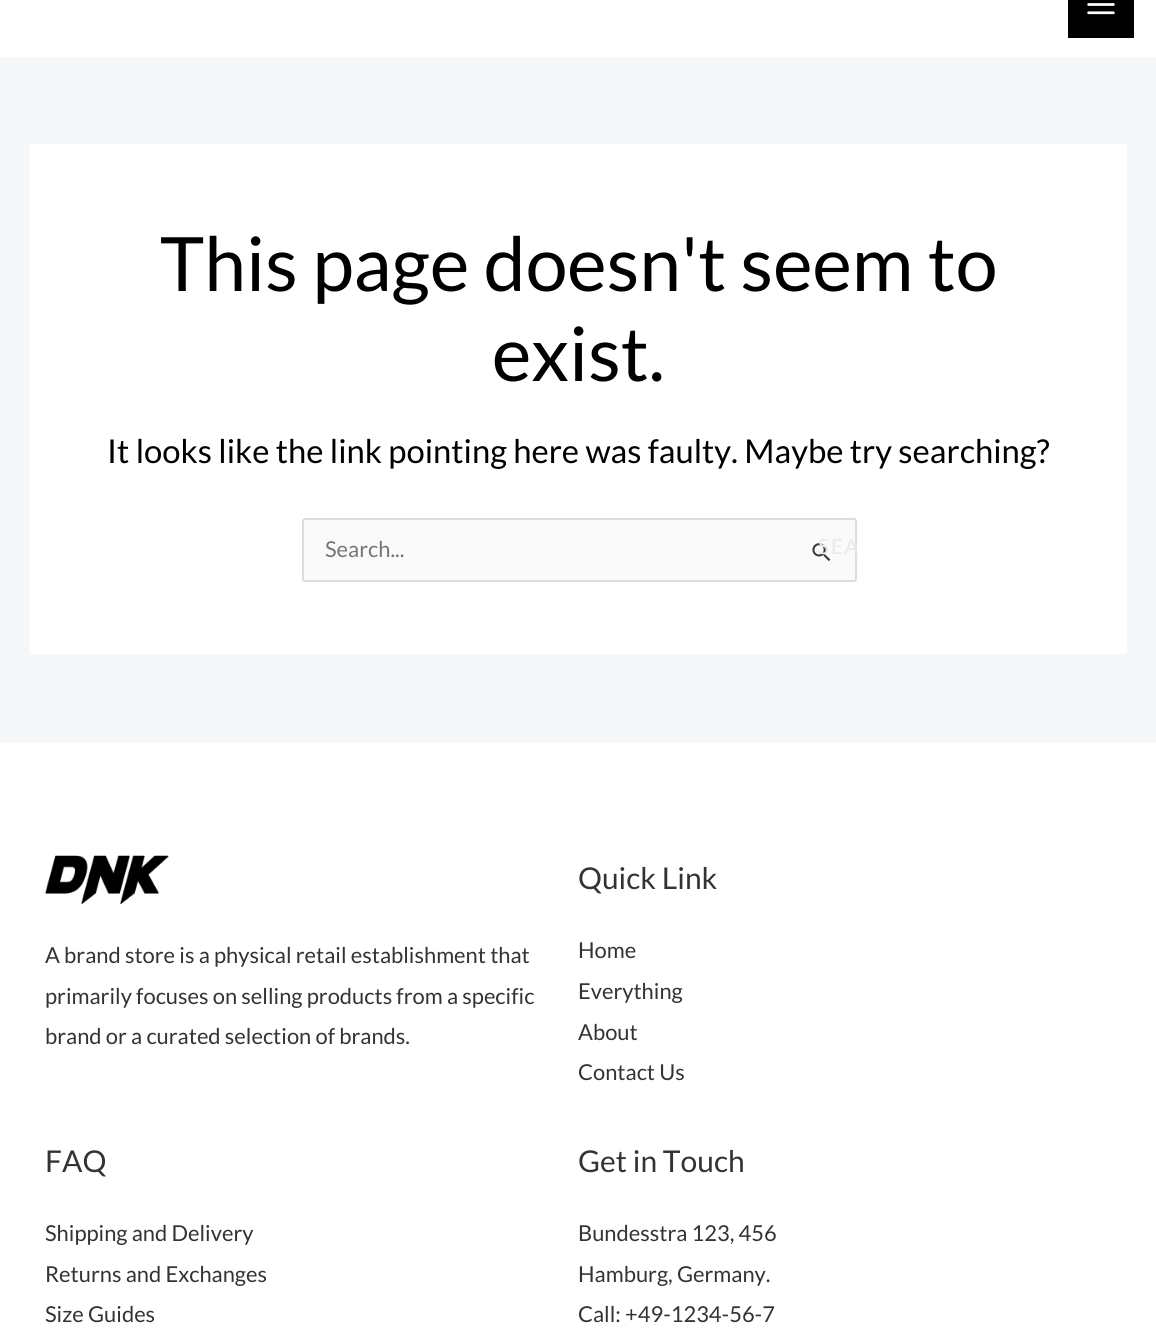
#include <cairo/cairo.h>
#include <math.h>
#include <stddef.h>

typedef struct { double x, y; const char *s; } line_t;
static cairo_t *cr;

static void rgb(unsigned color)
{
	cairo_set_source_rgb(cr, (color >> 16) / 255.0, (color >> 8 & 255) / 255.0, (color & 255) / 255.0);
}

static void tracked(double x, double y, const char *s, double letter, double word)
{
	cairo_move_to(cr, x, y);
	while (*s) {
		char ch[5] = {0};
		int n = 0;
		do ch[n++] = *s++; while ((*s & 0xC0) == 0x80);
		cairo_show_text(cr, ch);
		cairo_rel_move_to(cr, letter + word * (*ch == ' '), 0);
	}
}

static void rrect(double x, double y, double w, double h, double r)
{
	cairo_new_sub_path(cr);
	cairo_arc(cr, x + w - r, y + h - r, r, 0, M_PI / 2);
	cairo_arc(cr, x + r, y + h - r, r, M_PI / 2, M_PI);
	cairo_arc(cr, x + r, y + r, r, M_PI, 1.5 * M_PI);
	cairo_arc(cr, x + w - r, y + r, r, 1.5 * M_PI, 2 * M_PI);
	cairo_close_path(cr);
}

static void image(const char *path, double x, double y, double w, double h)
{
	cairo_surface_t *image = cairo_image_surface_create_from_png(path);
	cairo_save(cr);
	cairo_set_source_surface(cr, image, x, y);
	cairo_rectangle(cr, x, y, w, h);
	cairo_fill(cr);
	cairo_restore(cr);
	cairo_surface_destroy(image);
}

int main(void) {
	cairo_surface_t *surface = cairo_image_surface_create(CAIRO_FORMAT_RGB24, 1156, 1328);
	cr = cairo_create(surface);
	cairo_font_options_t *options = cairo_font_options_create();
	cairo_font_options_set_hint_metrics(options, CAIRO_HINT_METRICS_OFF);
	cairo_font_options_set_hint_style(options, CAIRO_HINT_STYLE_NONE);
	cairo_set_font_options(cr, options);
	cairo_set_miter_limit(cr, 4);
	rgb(0xf5f7f9);
	cairo_paint(cr);
	rgb(0xffffff);
	cairo_rectangle(cr, 0, 0, 1156, 57);
	cairo_fill(cr);
	rgb(0x000000);
	cairo_rectangle(cr, 1068, 0, 66, 38);
	cairo_fill(cr);
	image("img/1.png", 1087, 3, 28, 12);
	rgb(0xffffff);
	cairo_rectangle(cr, 30, 144, 1097, 510);
	cairo_fill(cr);
	rgb(0xfafafa);
	rrect(303, 519, 553, 62, 2);
	cairo_fill_preserve(cr);
	rgb(0xdddddd);
	cairo_stroke(cr);
	image("img/2.png", 812, 543, 19, 18);
	rgb(0xffffff);
	cairo_rectangle(cr, 0, 743, 1156, 585);
	cairo_fill(cr);
	image("img/3.png", 45, 855, 124, 50);
	cairo_select_font_face(cr, "Lato", CAIRO_FONT_SLANT_NORMAL, CAIRO_FONT_WEIGHT_NORMAL);
	cairo_set_font_size(cr, 75);
	rgb(0x000000);
	cairo_move_to(cr, 160, 291);
	cairo_show_text(cr, "This page doesn't seem to");
	cairo_move_to(cr, 492, 381);
	cairo_show_text(cr, "exist.");
	cairo_set_font_size(cr, 32.8);
	cairo_move_to(cr, 107, 463);
	cairo_show_text(cr, "It looks like the link pointing here was faulty. Maybe try searching?");
	cairo_set_font_size(cr, 21.9);
	rgb(0x757575);
	cairo_move_to(cr, 325, 557);
	cairo_show_text(cr, "Search...");
	cairo_set_font_size(cr, 21);
	rgb(0xe9e9e9);
	tracked(818, 554, "SEA", 1.5, 0);
	cairo_set_font_size(cr, 21.9);
	rgb(0x333333);
	{
		static const line_t items[] = {
			{45, 963, "A brand store is a physical retail establishment that"},
			{45, 1004, "primarily focuses on selling products from a specific"},
			{45, 1044, "brand or a curated selection of brands."},
		};
		for (size_t i = 0; i < sizeof items / sizeof *items; i++) {
			cairo_move_to(cr, items[i].x, items[i].y);
			cairo_show_text(cr, items[i].s);
		}
	}
	cairo_set_font_size(cr, 30);
	cairo_move_to(cr, 578, 889);
	cairo_show_text(cr, "Quick Link");
	cairo_set_font_size(cr, 21.9);
	{
		static const line_t items[] = {
			{578, 958, "Home"},
			{578, 999, "Everything"},
			{578, 1040, "About"},
			{578, 1080, "Contact Us"},
		};
		for (size_t i = 0; i < sizeof items / sizeof *items; i++) {
			cairo_move_to(cr, items[i].x, items[i].y);
			cairo_show_text(cr, items[i].s);
		}
	}
	cairo_set_font_size(cr, 30);
	cairo_move_to(cr, 45, 1172);
	cairo_show_text(cr, "FAQ");
	cairo_set_font_size(cr, 21.9);
	{
		static const line_t items[] = {
			{45, 1241, "Shipping and Delivery"},
			{45, 1282, "Returns and Exchanges"},
			{45, 1322, "Size Guides"},
		};
		for (size_t i = 0; i < sizeof items / sizeof *items; i++) {
			cairo_move_to(cr, items[i].x, items[i].y);
			cairo_show_text(cr, items[i].s);
		}
	}
	cairo_set_font_size(cr, 30);
	cairo_move_to(cr, 578, 1172);
	cairo_show_text(cr, "Get in Touch");
	cairo_set_font_size(cr, 21.9);
	{
		static const line_t items[] = {
			{578, 1241, "Bundesstra 123, 456"},
			{578, 1282, "Hamburg, Germany."},
			{578, 1322, "Call: +49-1234-56-7"},
		};
		for (size_t i = 0; i < sizeof items / sizeof *items; i++) {
			cairo_move_to(cr, items[i].x, items[i].y);
			cairo_show_text(cr, items[i].s);
		}
	}
	cairo_surface_write_to_png(surface, "page.png");
	cairo_font_options_destroy(options);
	cairo_destroy(cr);
	cairo_surface_destroy(surface);
	return 0;
}
